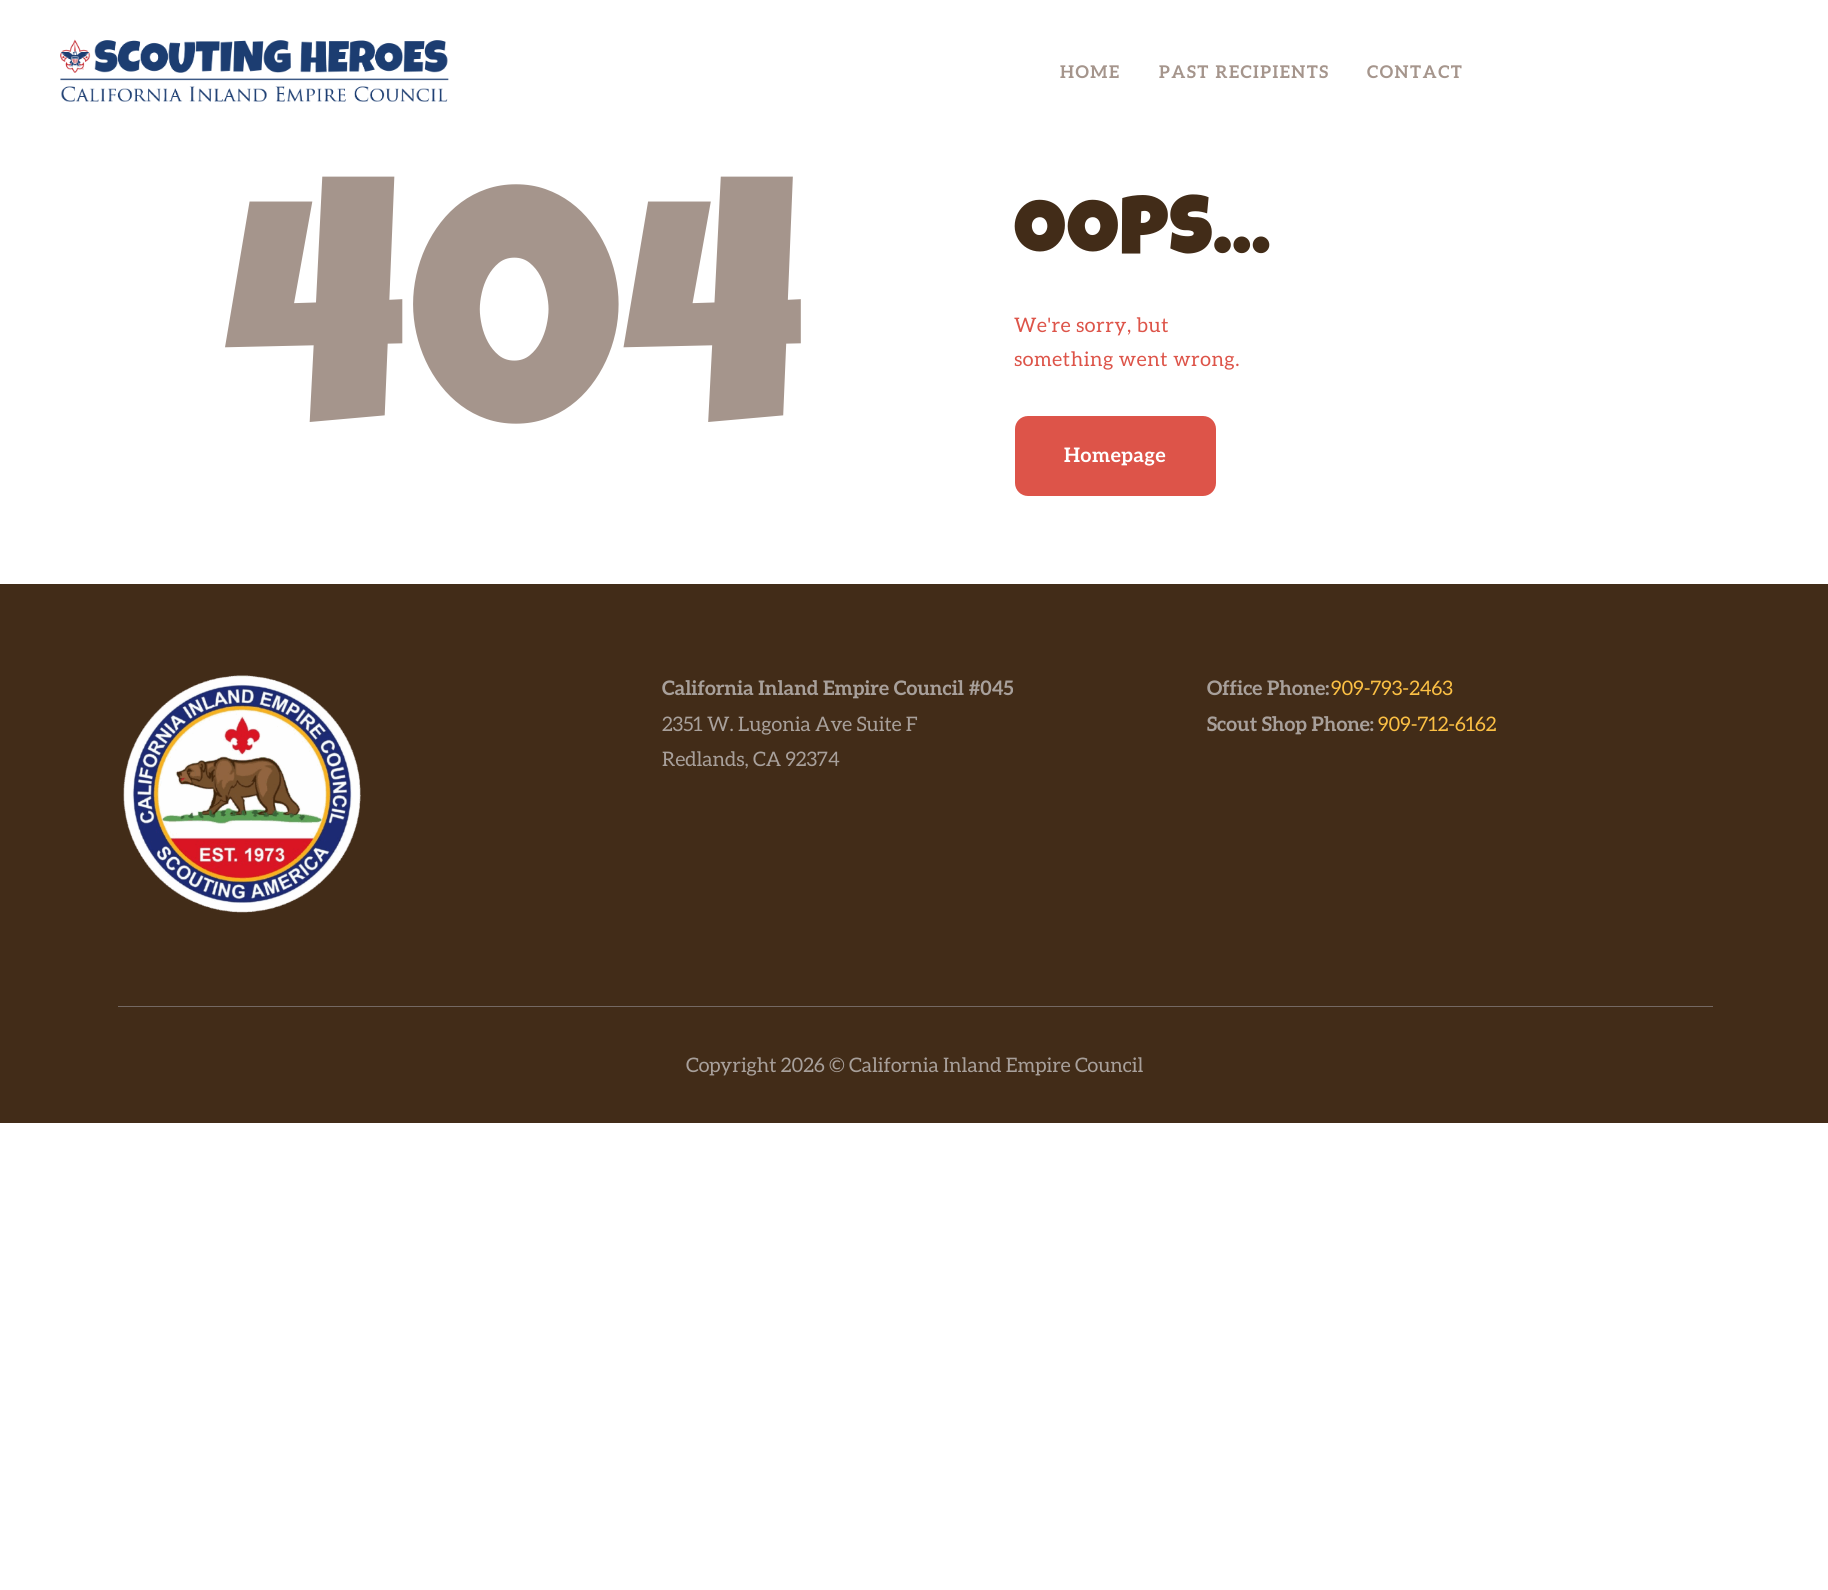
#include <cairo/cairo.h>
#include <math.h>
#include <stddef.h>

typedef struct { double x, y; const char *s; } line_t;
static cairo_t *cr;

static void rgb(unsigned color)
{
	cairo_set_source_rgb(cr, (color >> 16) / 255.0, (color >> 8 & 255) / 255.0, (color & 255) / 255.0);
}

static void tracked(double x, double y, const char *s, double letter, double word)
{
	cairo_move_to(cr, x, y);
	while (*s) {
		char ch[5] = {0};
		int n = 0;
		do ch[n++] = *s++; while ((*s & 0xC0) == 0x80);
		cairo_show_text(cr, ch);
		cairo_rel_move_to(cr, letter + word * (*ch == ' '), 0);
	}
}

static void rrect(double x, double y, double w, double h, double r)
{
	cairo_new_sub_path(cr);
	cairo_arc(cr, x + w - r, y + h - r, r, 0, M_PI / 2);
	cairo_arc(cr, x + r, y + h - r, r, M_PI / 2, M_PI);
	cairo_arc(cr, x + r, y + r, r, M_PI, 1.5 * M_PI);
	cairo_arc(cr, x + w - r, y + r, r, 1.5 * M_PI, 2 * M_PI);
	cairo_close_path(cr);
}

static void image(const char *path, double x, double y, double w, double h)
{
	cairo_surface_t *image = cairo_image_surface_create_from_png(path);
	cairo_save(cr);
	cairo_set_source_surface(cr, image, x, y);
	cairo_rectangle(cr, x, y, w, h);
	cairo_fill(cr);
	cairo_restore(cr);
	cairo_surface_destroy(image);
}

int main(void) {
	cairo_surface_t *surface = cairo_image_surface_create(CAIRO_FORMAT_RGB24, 1828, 1590);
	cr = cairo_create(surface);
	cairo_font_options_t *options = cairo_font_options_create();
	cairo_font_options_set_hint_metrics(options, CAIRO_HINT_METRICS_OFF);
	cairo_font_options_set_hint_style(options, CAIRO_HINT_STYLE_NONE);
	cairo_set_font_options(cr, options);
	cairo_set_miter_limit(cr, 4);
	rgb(0xffffff);
	cairo_paint(cr);
	image("img/1.png", 60, 39, 389, 63);
	rgb(0xdd5449);
	rrect(1015, 416, 201, 80, 13);
	cairo_fill(cr);
	rgb(0x422c18);
	cairo_rectangle(cr, 0, 584, 1828, 539);
	cairo_fill(cr);
	image("img/2.png", 123, 675, 238, 238);
	rgb(0x746862);
	cairo_rectangle(cr, 118, 1006, 1595, 1);
	cairo_fill(cr);
	cairo_select_font_face(cr, "Aleo", CAIRO_FONT_SLANT_NORMAL, CAIRO_FONT_WEIGHT_BOLD);
	cairo_set_font_size(cr, 17.5);
	rgb(0xa5958c);
	{
		static const line_t items[] = {
			{1060, 78, "HOME"},
			{1159, 78, "PAST RECIPIENTS"},
			{1367, 78, "CONTACT"},
		};
		for (size_t i = 0; i < sizeof items / sizeof *items; i++) {
			tracked(items[i].x, items[i].y, items[i].s, 1.5, 0);
		}
	}
	cairo_select_font_face(cr, "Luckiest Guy", CAIRO_FONT_SLANT_NORMAL, CAIRO_FONT_WEIGHT_NORMAL);
	cairo_set_font_size(cr, 340);
	cairo_move_to(cr, 225, 423);
	cairo_show_text(cr, "404");
	cairo_set_font_size(cr, 81);
	rgb(0x422c18);
	tracked(1014, 253, "OOPS...", 1.25, 0);
	cairo_select_font_face(cr, "Aleo", CAIRO_FONT_SLANT_NORMAL, CAIRO_FONT_WEIGHT_NORMAL);
	cairo_set_font_size(cr, 20);
	rgb(0xdd5449);
	tracked(1014, 332, "We're sorry, but", 0.6, 0);
	tracked(1014, 366, "something went wrong.", 0.6, 0);
	cairo_select_font_face(cr, "Aleo", CAIRO_FONT_SLANT_NORMAL, CAIRO_FONT_WEIGHT_BOLD);
	rgb(0xffffff);
	tracked(1064, 462, "Homepage", 0.6, 0);
	rgb(0xa8a09b);
	cairo_move_to(cr, 662, 695);
	cairo_show_text(cr, "California Inland Empire Council #045");
	cairo_select_font_face(cr, "Aleo", CAIRO_FONT_SLANT_NORMAL, CAIRO_FONT_WEIGHT_NORMAL);
	cairo_move_to(cr, 662, 731);
	cairo_show_text(cr, "2351 W. Lugonia Ave Suite F");
	cairo_move_to(cr, 662, 766);
	cairo_show_text(cr, "Redlands, CA 92374");
	cairo_select_font_face(cr, "Aleo", CAIRO_FONT_SLANT_NORMAL, CAIRO_FONT_WEIGHT_BOLD);
	cairo_move_to(cr, 1207, 695);
	cairo_show_text(cr, "Office Phone:");
	cairo_select_font_face(cr, "Aleo", CAIRO_FONT_SLANT_NORMAL, CAIRO_FONT_WEIGHT_NORMAL);
	rgb(0xfcc044);
	cairo_move_to(cr, 1331, 695);
	cairo_show_text(cr, "909-793-2463");
	cairo_select_font_face(cr, "Aleo", CAIRO_FONT_SLANT_NORMAL, CAIRO_FONT_WEIGHT_BOLD);
	rgb(0xa8a09b);
	cairo_move_to(cr, 1207, 731);
	cairo_show_text(cr, "Scout Shop Phone:");
	cairo_select_font_face(cr, "Aleo", CAIRO_FONT_SLANT_NORMAL, CAIRO_FONT_WEIGHT_NORMAL);
	rgb(0xfcc044);
	cairo_move_to(cr, 1378, 731);
	cairo_show_text(cr, "909-712-6162");
	rgb(0xa8a09b);
	cairo_move_to(cr, 686, 1072);
	cairo_show_text(cr, "Copyright 2026 © California Inland Empire Council");
	cairo_surface_write_to_png(surface, "page.png");
	cairo_font_options_destroy(options);
	cairo_destroy(cr);
	cairo_surface_destroy(surface);
	return 0;
}
